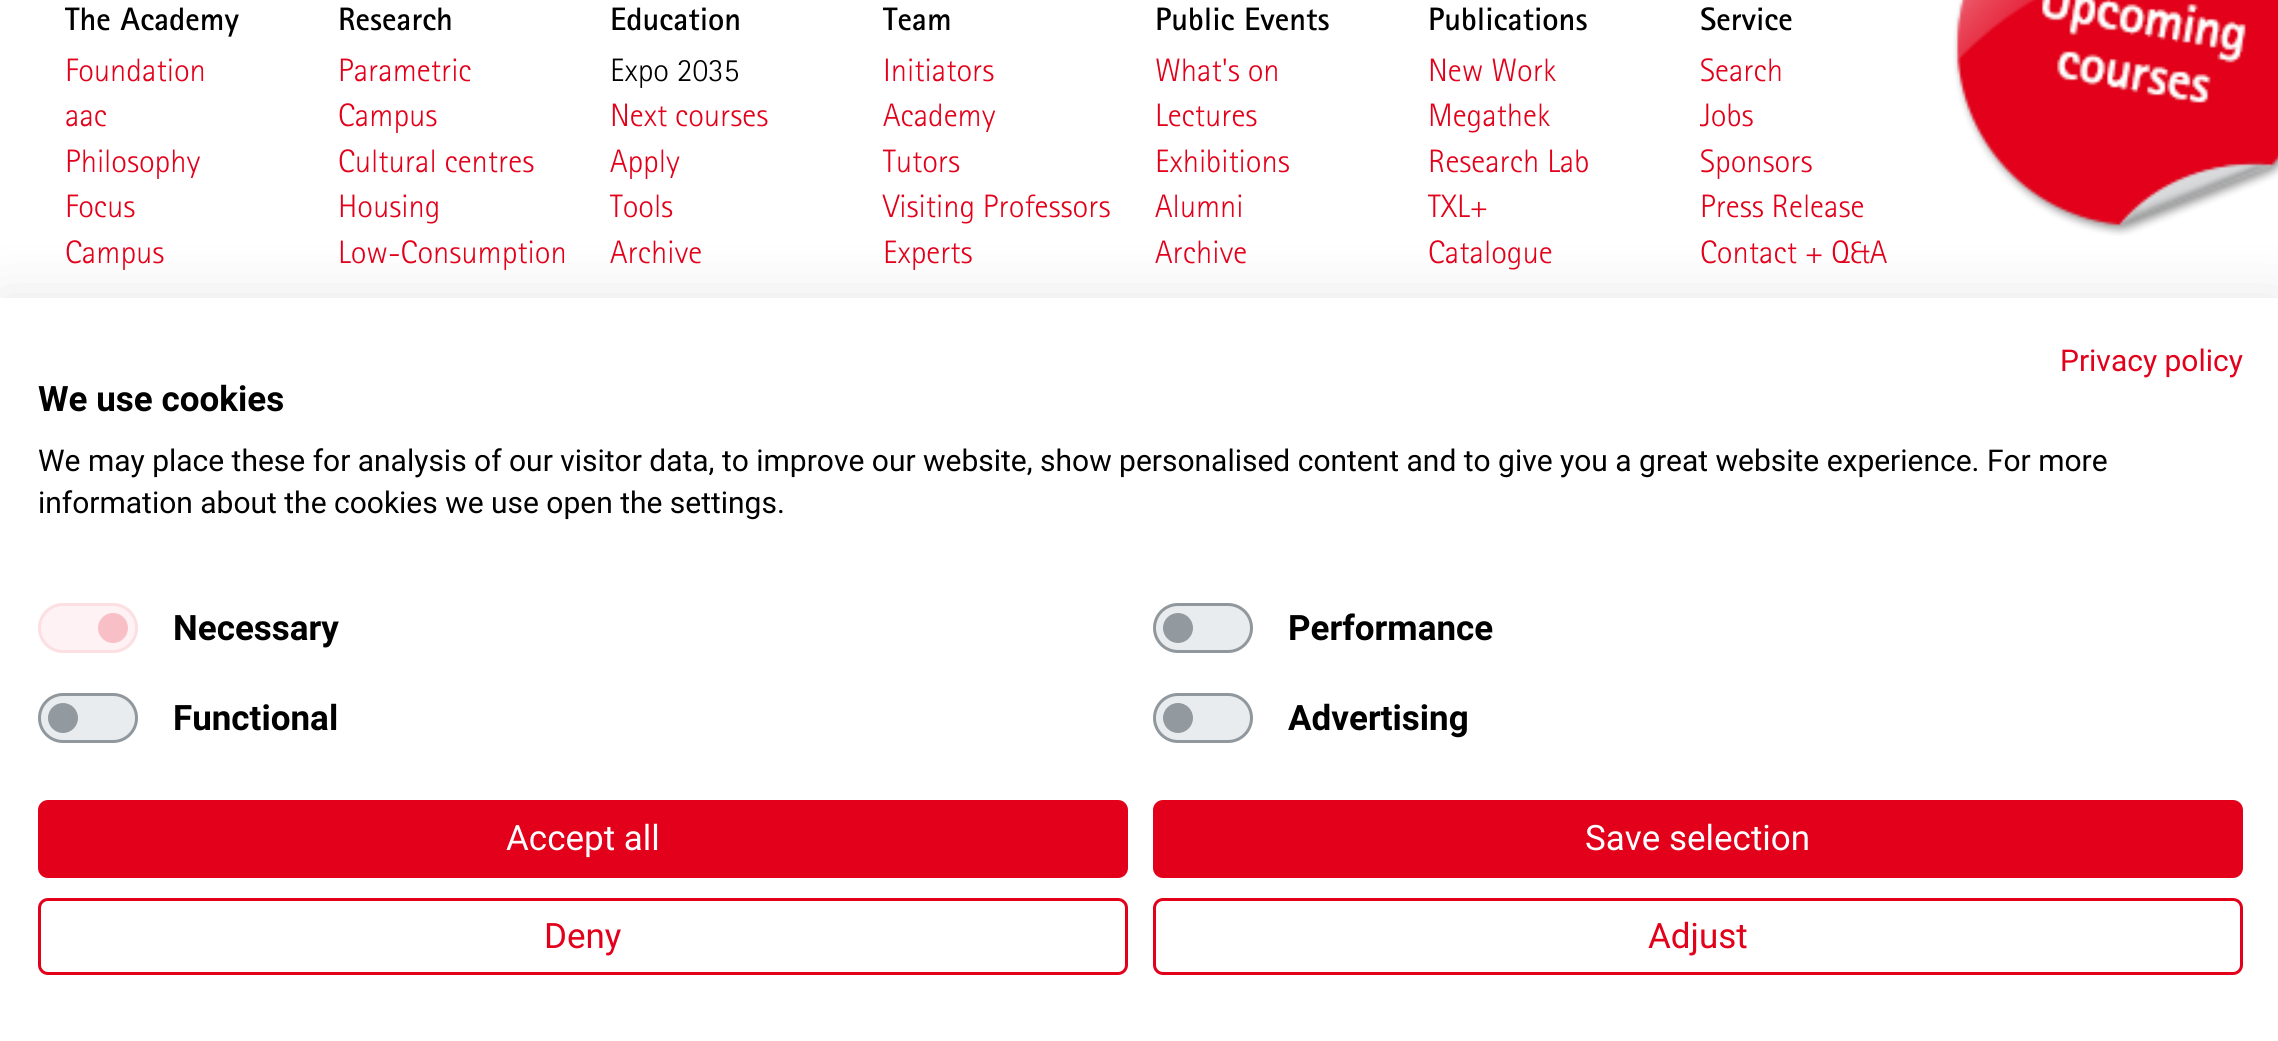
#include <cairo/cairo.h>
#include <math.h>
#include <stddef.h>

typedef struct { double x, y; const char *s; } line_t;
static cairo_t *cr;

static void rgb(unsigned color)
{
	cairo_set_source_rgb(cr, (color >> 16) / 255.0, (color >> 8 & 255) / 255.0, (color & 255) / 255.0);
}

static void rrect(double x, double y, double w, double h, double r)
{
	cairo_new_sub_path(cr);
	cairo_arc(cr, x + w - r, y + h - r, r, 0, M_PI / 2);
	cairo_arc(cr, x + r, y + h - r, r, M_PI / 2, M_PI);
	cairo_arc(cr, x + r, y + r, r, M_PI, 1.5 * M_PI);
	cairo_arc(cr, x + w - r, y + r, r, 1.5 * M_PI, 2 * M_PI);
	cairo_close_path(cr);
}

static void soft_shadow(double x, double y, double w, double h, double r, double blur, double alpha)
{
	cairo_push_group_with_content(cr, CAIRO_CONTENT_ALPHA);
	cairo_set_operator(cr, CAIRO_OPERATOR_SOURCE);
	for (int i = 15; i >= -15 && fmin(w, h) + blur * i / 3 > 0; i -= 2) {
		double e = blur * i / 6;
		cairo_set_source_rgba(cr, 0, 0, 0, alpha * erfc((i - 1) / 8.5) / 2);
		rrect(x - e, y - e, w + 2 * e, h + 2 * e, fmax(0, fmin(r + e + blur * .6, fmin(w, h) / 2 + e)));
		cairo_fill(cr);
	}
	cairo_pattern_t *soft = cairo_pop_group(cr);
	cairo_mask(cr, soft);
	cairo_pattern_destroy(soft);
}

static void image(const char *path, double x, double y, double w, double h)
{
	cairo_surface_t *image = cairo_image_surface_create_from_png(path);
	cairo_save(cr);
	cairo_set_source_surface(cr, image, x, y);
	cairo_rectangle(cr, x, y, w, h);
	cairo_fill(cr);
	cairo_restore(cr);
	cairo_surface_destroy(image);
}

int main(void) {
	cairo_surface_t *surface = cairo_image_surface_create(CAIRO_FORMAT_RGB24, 2278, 1041);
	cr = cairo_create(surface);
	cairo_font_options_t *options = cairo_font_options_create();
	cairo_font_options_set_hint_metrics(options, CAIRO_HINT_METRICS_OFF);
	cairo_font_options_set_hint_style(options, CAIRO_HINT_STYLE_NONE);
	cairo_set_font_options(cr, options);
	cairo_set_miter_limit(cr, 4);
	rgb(0xffffff);
	cairo_paint(cr);
	image("img/1.png", 1953, 0, 325, 236);
	rgb(0x000000);
	soft_shadow(0, 298, 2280, 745, 0, 30, 0.1);
	rgb(0xffffff);
	cairo_rectangle(cr, 0, 298, 2278, 743);
	cairo_fill(cr);
	rgb(0xfef2f4);
	rrect(38, 603, 100, 50, 25);
	cairo_fill(cr);
	rgb(0xf8bfc6);
	cairo_arc(cr, 113, 628, 15, 0, 2 * M_PI);
	cairo_fill(cr);
	rrect(39.5, 604.5, 97, 47, 23.5);
	rgb(0xfbdfe2);
	cairo_set_line_width(cr, 3);
	cairo_stroke(cr);
	rgb(0xe9ecef);
	rrect(1153, 603, 100, 50, 25);
	cairo_fill(cr);
	rgb(0x92999f);
	cairo_arc(cr, 1178, 628, 15, 0, 2 * M_PI);
	cairo_fill(cr);
	rrect(1154.5, 604.5, 97, 47, 23.5);
	cairo_set_source_rgba(cr, 0.424, 0.459, 0.49, 0.7);
	cairo_stroke(cr);
	rgb(0xe9ecef);
	rrect(38, 693, 100, 50, 25);
	cairo_fill(cr);
	rgb(0x92999f);
	cairo_arc(cr, 63, 718, 15, 0, 2 * M_PI);
	cairo_fill(cr);
	rrect(39.5, 694.5, 97, 47, 23.5);
	cairo_set_source_rgba(cr, 0.424, 0.459, 0.49, 0.7);
	cairo_stroke(cr);
	rgb(0xe9ecef);
	rrect(1153, 693, 100, 50, 25);
	cairo_fill(cr);
	rgb(0x92999f);
	cairo_arc(cr, 1178, 718, 15, 0, 2 * M_PI);
	cairo_fill(cr);
	rrect(1154.5, 694.5, 97, 47, 23.5);
	cairo_set_source_rgba(cr, 0.424, 0.459, 0.49, 0.7);
	cairo_stroke(cr);
	rgb(0xe2001a);
	rrect(39.5, 801.5, 1087, 75, 8.5);
	cairo_fill_preserve(cr);
	cairo_stroke(cr);
	rrect(1154.5, 801.5, 1087, 75, 8.5);
	cairo_fill_preserve(cr);
	cairo_stroke(cr);
	rrect(39.5, 899.5, 1087, 74, 8.5);
	cairo_stroke(cr);
	rrect(1154.5, 899.5, 1087, 74, 8.5);
	cairo_stroke(cr);
	cairo_select_font_face(cr, "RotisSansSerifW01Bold", CAIRO_FONT_SLANT_NORMAL, CAIRO_FONT_WEIGHT_BOLD);
	cairo_set_font_size(cr, 32.5);
	rgb(0x000000);
	cairo_move_to(cr, 65, 30);
	cairo_show_text(cr, "The Academy");
	cairo_select_font_face(cr, "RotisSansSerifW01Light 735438 Light", CAIRO_FONT_SLANT_NORMAL, CAIRO_FONT_WEIGHT_NORMAL);
	rgb(0xe2001a);
	{
		static const line_t items[] = {
			{65, 81, "Foundation"},
			{65, 126, "aac"},
			{65, 172, "Philosophy"},
			{65, 217, "Focus"},
			{65, 263, "Campus"},
		};
		for (size_t i = 0; i < sizeof items / sizeof *items; i++) {
			cairo_move_to(cr, items[i].x, items[i].y);
			cairo_show_text(cr, items[i].s);
		}
	}
	cairo_select_font_face(cr, "RotisSansSerifW01Bold", CAIRO_FONT_SLANT_NORMAL, CAIRO_FONT_WEIGHT_BOLD);
	rgb(0x000000);
	cairo_move_to(cr, 338, 30);
	cairo_show_text(cr, "Research");
	cairo_select_font_face(cr, "RotisSansSerifW01Light 735438 Light", CAIRO_FONT_SLANT_NORMAL, CAIRO_FONT_WEIGHT_NORMAL);
	rgb(0xe2001a);
	{
		static const line_t items[] = {
			{338, 81, "Parametric"},
			{338, 126, "Campus"},
			{338, 172, "Cultural centres"},
			{338, 217, "Housing"},
			{338, 263, "Low-Consumption"},
		};
		for (size_t i = 0; i < sizeof items / sizeof *items; i++) {
			cairo_move_to(cr, items[i].x, items[i].y);
			cairo_show_text(cr, items[i].s);
		}
	}
	cairo_select_font_face(cr, "RotisSansSerifW01Bold", CAIRO_FONT_SLANT_NORMAL, CAIRO_FONT_WEIGHT_BOLD);
	rgb(0x000000);
	cairo_move_to(cr, 610, 30);
	cairo_show_text(cr, "Education");
	cairo_select_font_face(cr, "RotisSansSerifW01Light 735438 Light", CAIRO_FONT_SLANT_NORMAL, CAIRO_FONT_WEIGHT_NORMAL);
	cairo_move_to(cr, 610, 81);
	cairo_show_text(cr, "Expo 2035");
	rgb(0xe2001a);
	{
		static const line_t items[] = {
			{610, 126, "Next courses"},
			{610, 172, "Apply"},
			{610, 217, "Tools"},
			{610, 263, "Archive"},
		};
		for (size_t i = 0; i < sizeof items / sizeof *items; i++) {
			cairo_move_to(cr, items[i].x, items[i].y);
			cairo_show_text(cr, items[i].s);
		}
	}
	cairo_select_font_face(cr, "RotisSansSerifW01Bold", CAIRO_FONT_SLANT_NORMAL, CAIRO_FONT_WEIGHT_BOLD);
	rgb(0x000000);
	cairo_move_to(cr, 883, 30);
	cairo_show_text(cr, "Team");
	cairo_select_font_face(cr, "RotisSansSerifW01Light 735438 Light", CAIRO_FONT_SLANT_NORMAL, CAIRO_FONT_WEIGHT_NORMAL);
	rgb(0xe2001a);
	{
		static const line_t items[] = {
			{883, 81, "Initiators"},
			{883, 126, "Academy"},
			{883, 172, "Tutors"},
			{883, 217, "Visiting Professors"},
			{883, 263, "Experts"},
		};
		for (size_t i = 0; i < sizeof items / sizeof *items; i++) {
			cairo_move_to(cr, items[i].x, items[i].y);
			cairo_show_text(cr, items[i].s);
		}
	}
	cairo_select_font_face(cr, "RotisSansSerifW01Bold", CAIRO_FONT_SLANT_NORMAL, CAIRO_FONT_WEIGHT_BOLD);
	rgb(0x000000);
	cairo_move_to(cr, 1155, 30);
	cairo_show_text(cr, "Public Events");
	cairo_select_font_face(cr, "RotisSansSerifW01Light 735438 Light", CAIRO_FONT_SLANT_NORMAL, CAIRO_FONT_WEIGHT_NORMAL);
	rgb(0xe2001a);
	{
		static const line_t items[] = {
			{1155, 81, "What's on"},
			{1155, 126, "Lectures"},
			{1155, 172, "Exhibitions"},
			{1155, 217, "Alumni"},
			{1155, 263, "Archive"},
		};
		for (size_t i = 0; i < sizeof items / sizeof *items; i++) {
			cairo_move_to(cr, items[i].x, items[i].y);
			cairo_show_text(cr, items[i].s);
		}
	}
	cairo_select_font_face(cr, "RotisSansSerifW01Bold", CAIRO_FONT_SLANT_NORMAL, CAIRO_FONT_WEIGHT_BOLD);
	rgb(0x000000);
	cairo_move_to(cr, 1428, 30);
	cairo_show_text(cr, "Publications");
	cairo_select_font_face(cr, "RotisSansSerifW01Light 735438 Light", CAIRO_FONT_SLANT_NORMAL, CAIRO_FONT_WEIGHT_NORMAL);
	rgb(0xe2001a);
	{
		static const line_t items[] = {
			{1428, 81, "New Work"},
			{1428, 126, "Megathek"},
			{1428, 172, "Research Lab"},
			{1428, 217, "TXL+"},
			{1428, 263, "Catalogue"},
		};
		for (size_t i = 0; i < sizeof items / sizeof *items; i++) {
			cairo_move_to(cr, items[i].x, items[i].y);
			cairo_show_text(cr, items[i].s);
		}
	}
	cairo_select_font_face(cr, "RotisSansSerifW01Bold", CAIRO_FONT_SLANT_NORMAL, CAIRO_FONT_WEIGHT_BOLD);
	rgb(0x000000);
	cairo_move_to(cr, 1700, 30);
	cairo_show_text(cr, "Service");
	cairo_select_font_face(cr, "RotisSansSerifW01Light 735438 Light", CAIRO_FONT_SLANT_NORMAL, CAIRO_FONT_WEIGHT_NORMAL);
	rgb(0xe2001a);
	{
		static const line_t items[] = {
			{1700, 81, "Search"},
			{1700, 126, "Jobs"},
			{1700, 172, "Sponsors"},
			{1700, 217, "Press Release"},
			{1700, 263, "Contact + Q&A"},
		};
		for (size_t i = 0; i < sizeof items / sizeof *items; i++) {
			cairo_move_to(cr, items[i].x, items[i].y);
			cairo_show_text(cr, items[i].s);
		}
	}
	cairo_select_font_face(cr, "Roboto", CAIRO_FONT_SLANT_NORMAL, CAIRO_FONT_WEIGHT_NORMAL);
	cairo_set_font_size(cr, 30);
	cairo_move_to(cr, 2060, 371);
	cairo_show_text(cr, "Privacy policy");
	cairo_select_font_face(cr, "Roboto", CAIRO_FONT_SLANT_NORMAL, CAIRO_FONT_WEIGHT_BOLD);
	cairo_set_font_size(cr, 35);
	rgb(0x000000);
	cairo_move_to(cr, 38, 411);
	cairo_show_text(cr, "We use cookies");
	cairo_select_font_face(cr, "Roboto", CAIRO_FONT_SLANT_NORMAL, CAIRO_FONT_WEIGHT_NORMAL);
	cairo_set_font_size(cr, 30);
	cairo_move_to(cr, 38, 471);
	cairo_show_text(cr, "We may place these for analysis of our visitor data, to improve our website, show personalised content and to give you a great website experience. For more");
	cairo_move_to(cr, 38, 513);
	cairo_show_text(cr, "information about the cookies we use open the settings.");
	cairo_select_font_face(cr, "Roboto", CAIRO_FONT_SLANT_NORMAL, CAIRO_FONT_WEIGHT_BOLD);
	cairo_set_font_size(cr, 35);
	{
		static const line_t items[] = {
			{173, 640, "Necessary"},
			{1288, 640, "Performance"},
			{173, 730, "Functional"},
			{1288, 730, "Advertising"},
		};
		for (size_t i = 0; i < sizeof items / sizeof *items; i++) {
			cairo_move_to(cr, items[i].x, items[i].y);
			cairo_show_text(cr, items[i].s);
		}
	}
	cairo_select_font_face(cr, "Roboto", CAIRO_FONT_SLANT_NORMAL, CAIRO_FONT_WEIGHT_NORMAL);
	rgb(0xffffff);
	cairo_move_to(cr, 506, 850);
	cairo_show_text(cr, "Accept all");
	cairo_move_to(cr, 1585, 850);
	cairo_show_text(cr, "Save selection");
	rgb(0xe2001a);
	cairo_move_to(cr, 544, 948);
	cairo_show_text(cr, "Deny");
	cairo_move_to(cr, 1648, 948);
	cairo_show_text(cr, "Adjust");
	cairo_surface_write_to_png(surface, "page.png");
	cairo_font_options_destroy(options);
	cairo_destroy(cr);
	cairo_surface_destroy(surface);
	return 0;
}
